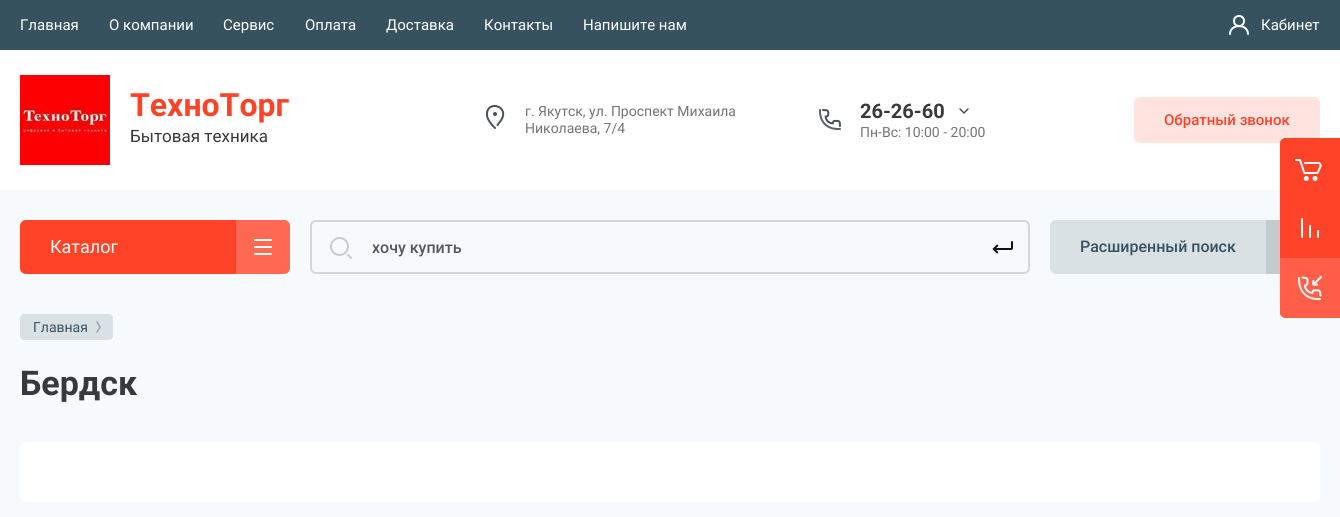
#include <cairo/cairo.h>
#include <math.h>
#include <stddef.h>

typedef struct { double x, y; const char *s; } line_t;
static cairo_t *cr;

static void rgb(unsigned color)
{
	cairo_set_source_rgb(cr, (color >> 16) / 255.0, (color >> 8 & 255) / 255.0, (color & 255) / 255.0);
}

static void rrect(double x, double y, double w, double h, double r)
{
	cairo_new_sub_path(cr);
	cairo_arc(cr, x + w - r, y + h - r, r, 0, M_PI / 2);
	cairo_arc(cr, x + r, y + h - r, r, M_PI / 2, M_PI);
	cairo_arc(cr, x + r, y + r, r, M_PI, 1.5 * M_PI);
	cairo_arc(cr, x + w - r, y + r, r, 1.5 * M_PI, 2 * M_PI);
	cairo_close_path(cr);
}

static void image(const char *path, double x, double y, double w, double h)
{
	cairo_surface_t *image = cairo_image_surface_create_from_png(path);
	cairo_save(cr);
	cairo_set_source_surface(cr, image, x, y);
	cairo_rectangle(cr, x, y, w, h);
	cairo_fill(cr);
	cairo_restore(cr);
	cairo_surface_destroy(image);
}

int main(void) {
	cairo_surface_t *surface = cairo_image_surface_create(CAIRO_FORMAT_RGB24, 1340, 517);
	cr = cairo_create(surface);
	cairo_font_options_t *options = cairo_font_options_create();
	cairo_font_options_set_hint_metrics(options, CAIRO_HINT_METRICS_OFF);
	cairo_font_options_set_hint_style(options, CAIRO_HINT_STYLE_NONE);
	cairo_set_font_options(cr, options);
	cairo_set_miter_limit(cr, 4);
	rgb(0xf6fafc);
	cairo_paint(cr);
	rgb(0x37525f);
	cairo_rectangle(cr, 0, 0, 1340, 50);
	cairo_fill(cr);
	cairo_arc(cr, 1239, 21, 5, 0, 2 * M_PI);
	rgb(0xffffff);
	cairo_stroke(cr);
	cairo_new_path(cr);
	cairo_move_to(cr, 1248, 34);
	cairo_curve_to(cr, 1248, 23.5, 1230, 23.5, 1230, 34);
	cairo_set_line_cap(cr, CAIRO_LINE_CAP_ROUND);
	cairo_stroke(cr);
	cairo_rectangle(cr, 0, 50, 1340, 140);
	cairo_fill(cr);
	image("img/1.png", 20, 75, 90, 90);
	cairo_new_path(cr);
	cairo_move_to(cr, 495, 128);
	cairo_curve_to(cr, 491, 124, 486, 118.5, 487, 112.5);
	cairo_curve_to(cr, 489, 101, 507, 106, 502.5, 117.5);
	cairo_curve_to(cr, 501.5, 120.5, 499, 122.5, 497.5, 125);
	rgb(0x475354);
	cairo_stroke(cr);
	cairo_arc(cr, 495, 114, 2, 0, 2 * M_PI);
	cairo_fill(cr);
	image("img/2.png", 819, 109, 22, 21);
	image("img/3.png", 959, 108, 10, 6);
	rgb(0xffe3df);
	rrect(1134, 97, 186, 46, 6);
	cairo_fill(cr);
	rgb(0xff4329);
	rrect(20, 220, 270, 54, 6);
	cairo_fill(cr);
	cairo_set_source_rgba(cr, 1, 1, 1, 0.2);
	cairo_new_path(cr);
	cairo_move_to(cr, 236, 220);
	cairo_line_to(cr, 284, 220);
	cairo_curve_to(cr, 287.5, 220, 290, 222.5, 290, 226);
	cairo_line_to(cr, 290, 274);
	cairo_line_to(cr, 236, 274);
	cairo_close_path(cr);
	cairo_fill(cr);
	image("img/4.png", 254, 239, 18, 16);
	rrect(311, 221, 718, 52, 5);
	rgb(0xd4d7d9);
	cairo_set_line_cap(cr, CAIRO_LINE_CAP_BUTT);
	cairo_stroke(cr);
	cairo_arc(cr, 339.5, 246.5, 8.5, 0, 2 * M_PI);
	rgb(0xc8cccd);
	cairo_stroke(cr);
	cairo_new_path(cr);
	cairo_move_to(cr, 348, 255);
	cairo_line_to(cr, 351, 258);
	cairo_set_line_cap(cr, CAIRO_LINE_CAP_ROUND);
	cairo_stroke(cr);
	image("img/5.png", 992, 241, 21, 13);
	rgb(0xd9e1e4);
	rrect(1050, 220, 270, 54, 6);
	cairo_fill(cr);
	cairo_set_source_rgba(cr, 0.216, 0.322, 0.373, 0.15);
	cairo_rectangle(cr, 1266, 220, 14, 54);
	cairo_fill(cr);
	rgb(0xd9e1e4);
	rrect(20, 314, 93, 26, 4);
	cairo_fill(cr);
	image("img/6.png", 96, 321, 5, 12);
	rgb(0xffffff);
	rrect(20, 442, 1300, 60, 6);
	cairo_fill(cr);
	rgb(0xff4329);
	cairo_new_path(cr);
	cairo_move_to(cr, 1286, 138);
	cairo_line_to(cr, 1340, 138);
	cairo_line_to(cr, 1340, 198);
	cairo_line_to(cr, 1280, 198);
	cairo_line_to(cr, 1280, 144);
	cairo_curve_to(cr, 1280, 140.5, 1282.5, 138, 1286, 138);
	cairo_close_path(cr);
	cairo_fill(cr);
	cairo_new_path(cr);
	cairo_move_to(cr, 1286, 138);
	cairo_line_to(cr, 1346, 138);
	cairo_line_to(cr, 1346, 198);
	cairo_line_to(cr, 1286, 198);
	cairo_curve_to(cr, 1282.5, 198, 1280, 195.5, 1280, 192);
	cairo_line_to(cr, 1280, 144);
	cairo_curve_to(cr, 1280, 140.5, 1282.5, 138, 1286, 138);
	cairo_close_path(cr);
	cairo_fill(cr);
	image("img/7.png", 1295, 159, 27, 22);
	cairo_rectangle(cr, 1280, 198, 60, 60);
	cairo_fill(cr);
	image("img/8.png", 1301, 218, 18, 20);
	cairo_new_path(cr);
	cairo_move_to(cr, 1280, 258);
	cairo_line_to(cr, 1340, 258);
	cairo_line_to(cr, 1340, 318);
	cairo_line_to(cr, 1286, 318);
	cairo_curve_to(cr, 1282.5, 318, 1280, 315.5, 1280, 312);
	cairo_close_path(cr);
	cairo_fill(cr);
	cairo_set_source_rgba(cr, 1, 1, 1, 0.15);
	cairo_new_path(cr);
	cairo_move_to(cr, 1280, 258);
	cairo_line_to(cr, 1340, 258);
	cairo_line_to(cr, 1340, 318);
	cairo_line_to(cr, 1286, 318);
	cairo_curve_to(cr, 1282.5, 318, 1280, 315.5, 1280, 312);
	cairo_close_path(cr);
	cairo_fill(cr);
	rgb(0xff4329);
	cairo_new_path(cr);
	cairo_move_to(cr, 1286, 258);
	cairo_line_to(cr, 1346, 258);
	cairo_line_to(cr, 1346, 318);
	cairo_line_to(cr, 1286, 318);
	cairo_curve_to(cr, 1282.5, 318, 1280, 315.5, 1280, 312);
	cairo_line_to(cr, 1280, 264);
	cairo_curve_to(cr, 1280, 260.5, 1282.5, 258, 1286, 258);
	cairo_close_path(cr);
	cairo_fill(cr);
	cairo_set_source_rgba(cr, 1, 1, 1, 0.15);
	cairo_new_path(cr);
	cairo_move_to(cr, 1286, 258);
	cairo_line_to(cr, 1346, 258);
	cairo_line_to(cr, 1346, 318);
	cairo_line_to(cr, 1286, 318);
	cairo_curve_to(cr, 1282.5, 318, 1280, 315.5, 1280, 312);
	cairo_line_to(cr, 1280, 264);
	cairo_curve_to(cr, 1280, 260.5, 1282.5, 258, 1286, 258);
	cairo_close_path(cr);
	cairo_fill(cr);
	image("img/9.png", 1298, 276, 24, 25);
	cairo_select_font_face(cr, "Roboto", CAIRO_FONT_SLANT_NORMAL, CAIRO_FONT_WEIGHT_NORMAL);
	cairo_set_font_size(cr, 15);
	rgb(0xffffff);
	{
		static const line_t items[] = {
			{20, 30, "Главная"},
			{109, 30, "О компании"},
			{223, 30, "Сервис"},
			{305, 30, "Оплата"},
			{386, 30, "Доставка"},
			{484, 30, "Контакты"},
			{583, 30, "Напишите нам"},
			{1261, 30, "Кабинет"},
		};
		for (size_t i = 0; i < sizeof items / sizeof *items; i++) {
			cairo_move_to(cr, items[i].x, items[i].y);
			cairo_show_text(cr, items[i].s);
		}
	}
	cairo_select_font_face(cr, "Roboto", CAIRO_FONT_SLANT_NORMAL, CAIRO_FONT_WEIGHT_BOLD);
	cairo_set_font_size(cr, 32);
	rgb(0xff4329);
	cairo_move_to(cr, 130, 116);
	cairo_show_text(cr, "ТехноТорг");
	cairo_select_font_face(cr, "Roboto", CAIRO_FONT_SLANT_NORMAL, CAIRO_FONT_WEIGHT_NORMAL);
	cairo_set_font_size(cr, 17);
	rgb(0x393939);
	cairo_move_to(cr, 130, 142);
	cairo_show_text(cr, "Бытовая техника");
	cairo_set_font_size(cr, 14);
	rgb(0x747474);
	cairo_move_to(cr, 525, 116);
	cairo_show_text(cr, "г. Якутск, ул. Проспект Михаила");
	cairo_move_to(cr, 525, 133);
	cairo_show_text(cr, "Николаева, 7/4");
	cairo_select_font_face(cr, "Roboto", CAIRO_FONT_SLANT_NORMAL, CAIRO_FONT_WEIGHT_BOLD);
	cairo_set_font_size(cr, 20);
	rgb(0x393939);
	cairo_move_to(cr, 860, 118);
	cairo_show_text(cr, "26-26-60");
	cairo_select_font_face(cr, "Roboto", CAIRO_FONT_SLANT_NORMAL, CAIRO_FONT_WEIGHT_NORMAL);
	cairo_set_font_size(cr, 14);
	rgb(0x747474);
	cairo_move_to(cr, 860, 137);
	cairo_show_text(cr, "Пн-Вс: 10:00 - 20:00");
	cairo_select_font_face(cr, "Roboto Medium", CAIRO_FONT_SLANT_NORMAL, CAIRO_FONT_WEIGHT_NORMAL);
	cairo_set_font_size(cr, 15);
	rgb(0xff4329);
	cairo_move_to(cr, 1164, 125);
	cairo_show_text(cr, "Обратный звонок");
	cairo_select_font_face(cr, "Roboto", CAIRO_FONT_SLANT_NORMAL, CAIRO_FONT_WEIGHT_NORMAL);
	cairo_set_font_size(cr, 18);
	rgb(0xffffff);
	cairo_move_to(cr, 50, 253);
	cairo_show_text(cr, "Каталог");
	cairo_select_font_face(cr, "Roboto Medium", CAIRO_FONT_SLANT_NORMAL, CAIRO_FONT_WEIGHT_NORMAL);
	cairo_set_font_size(cr, 16);
	rgb(0x565858);
	cairo_move_to(cr, 372, 253);
	cairo_show_text(cr, "хочу купить");
	rgb(0x37525f);
	cairo_move_to(cr, 1080, 252);
	cairo_show_text(cr, "Расширенный поиск");
	cairo_select_font_face(cr, "Roboto", CAIRO_FONT_SLANT_NORMAL, CAIRO_FONT_WEIGHT_NORMAL);
	cairo_set_font_size(cr, 14);
	cairo_move_to(cr, 33, 332);
	cairo_show_text(cr, "Главная");
	cairo_select_font_face(cr, "Roboto", CAIRO_FONT_SLANT_NORMAL, CAIRO_FONT_WEIGHT_BOLD);
	cairo_set_font_size(cr, 34);
	rgb(0x393939);
	cairo_move_to(cr, 20, 395);
	cairo_show_text(cr, "Бердск");
	cairo_surface_write_to_png(surface, "page.png");
	cairo_font_options_destroy(options);
	cairo_destroy(cr);
	cairo_surface_destroy(surface);
	return 0;
}
